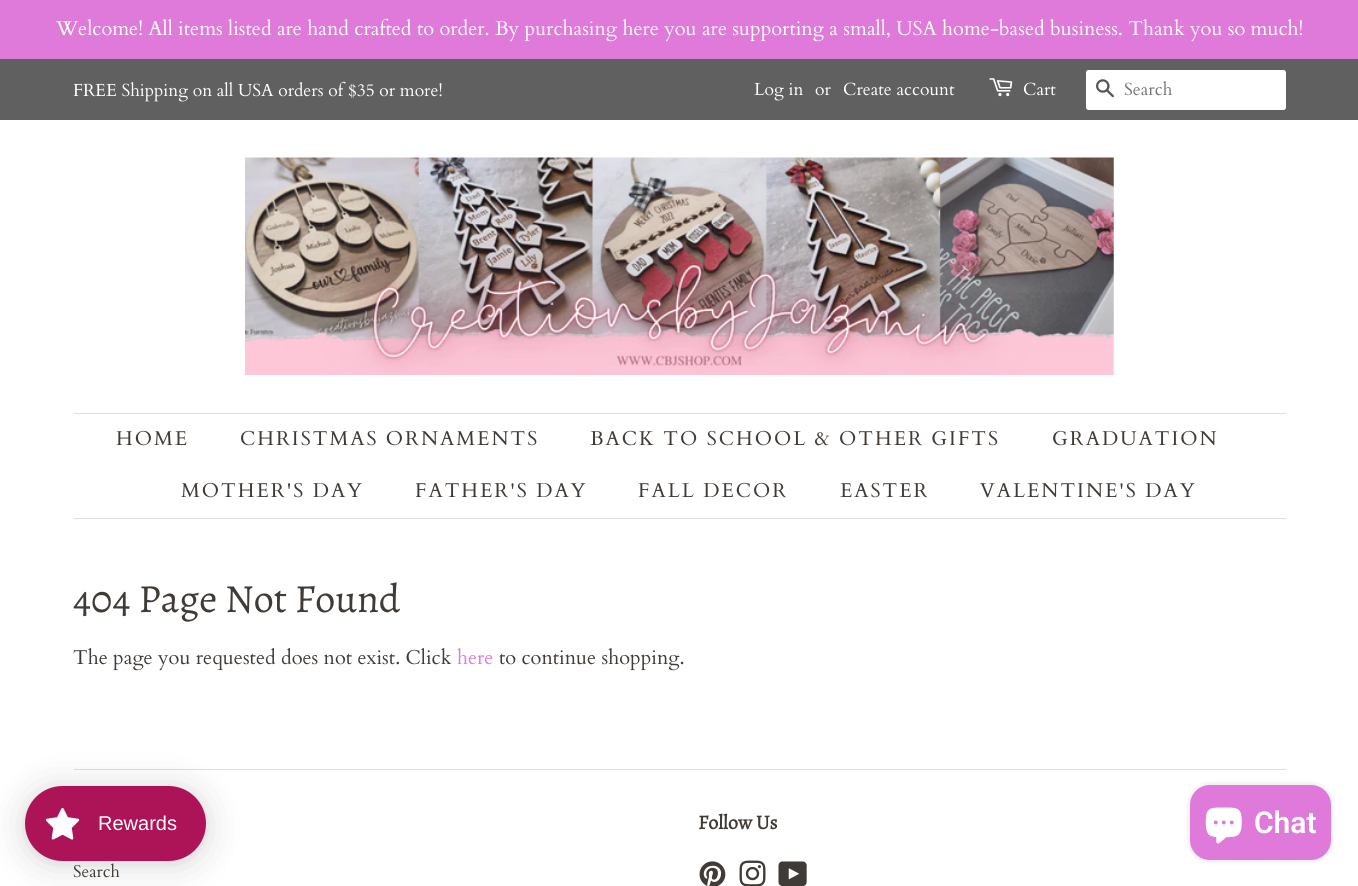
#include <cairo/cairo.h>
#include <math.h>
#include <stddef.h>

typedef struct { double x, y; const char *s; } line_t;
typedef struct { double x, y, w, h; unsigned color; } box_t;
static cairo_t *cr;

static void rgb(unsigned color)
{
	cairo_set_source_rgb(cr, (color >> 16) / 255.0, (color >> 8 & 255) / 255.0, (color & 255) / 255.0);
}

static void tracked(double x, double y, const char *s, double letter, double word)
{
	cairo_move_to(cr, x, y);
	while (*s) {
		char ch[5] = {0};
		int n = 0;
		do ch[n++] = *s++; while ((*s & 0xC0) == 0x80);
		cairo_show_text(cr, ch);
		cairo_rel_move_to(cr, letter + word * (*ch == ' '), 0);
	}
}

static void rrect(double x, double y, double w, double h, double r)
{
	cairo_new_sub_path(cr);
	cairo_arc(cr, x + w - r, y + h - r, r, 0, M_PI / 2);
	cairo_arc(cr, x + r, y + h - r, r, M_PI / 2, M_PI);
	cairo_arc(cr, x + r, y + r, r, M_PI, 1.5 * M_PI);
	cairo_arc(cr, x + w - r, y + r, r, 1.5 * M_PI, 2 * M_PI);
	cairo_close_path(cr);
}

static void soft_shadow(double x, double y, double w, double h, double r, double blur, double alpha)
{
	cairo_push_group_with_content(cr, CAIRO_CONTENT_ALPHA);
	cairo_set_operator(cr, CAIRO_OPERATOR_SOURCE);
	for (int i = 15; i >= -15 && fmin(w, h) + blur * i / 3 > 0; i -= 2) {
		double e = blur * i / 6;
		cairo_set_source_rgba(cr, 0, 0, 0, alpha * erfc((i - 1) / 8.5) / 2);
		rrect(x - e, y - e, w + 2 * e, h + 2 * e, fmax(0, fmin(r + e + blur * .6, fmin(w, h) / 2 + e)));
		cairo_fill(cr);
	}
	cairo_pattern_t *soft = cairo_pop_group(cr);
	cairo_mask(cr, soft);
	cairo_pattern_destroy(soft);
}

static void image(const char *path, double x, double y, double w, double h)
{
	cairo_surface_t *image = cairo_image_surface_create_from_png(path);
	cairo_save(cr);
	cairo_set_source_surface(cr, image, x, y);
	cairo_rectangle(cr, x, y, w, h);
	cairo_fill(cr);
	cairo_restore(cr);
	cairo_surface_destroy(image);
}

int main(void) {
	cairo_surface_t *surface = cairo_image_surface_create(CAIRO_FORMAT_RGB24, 1358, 886);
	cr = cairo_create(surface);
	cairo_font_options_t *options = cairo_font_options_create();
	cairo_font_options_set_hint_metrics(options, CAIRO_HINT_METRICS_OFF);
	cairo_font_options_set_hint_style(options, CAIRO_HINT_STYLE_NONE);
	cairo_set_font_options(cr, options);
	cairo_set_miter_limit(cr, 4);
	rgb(0xffffff);
	cairo_paint(cr);
	rgb(0xdf7adb);
	cairo_rectangle(cr, 0, 0, 1358, 59);
	cairo_fill(cr);
	rgb(0x606060);
	cairo_rectangle(cr, 0, 59, 1358, 61);
	cairo_fill(cr);
	image("img/1.png", 989, 78, 24, 19);
	rgb(0xffffff);
	rrect(1086, 70, 200, 40, 2.5);
	cairo_fill(cr);
	image("img/2.png", 1096, 79, 18, 19);
	image("img/3.png", 245, 157, 869, 218);
	{
		static const box_t items[] = {
			{74, 413, 1212, 1, 0xdddddd},
			{74, 518, 1212, 1, 0xdddddd},
			{74, 769, 1212, 1, 0xdddddd},
		};
		for (size_t i = 0; i < sizeof items / sizeof *items; i++) {
			rgb(items[i].color);
			cairo_rectangle(cr, items[i].x, items[i].y, items[i].w, items[i].h);
			cairo_fill(cr);
		}
	}
	image("img/4.png", 699, 861, 27, 25);
	image("img/5.png", 739, 860, 27, 26);
	image("img/6.png", 778, 861, 29, 25);
	rgb(0x000000);
	soft_shadow(1190, 785, 141, 75, 20, 3, 0.15);
	rgb(0xdf7adb);
	rrect(1190, 785, 141, 75, 20);
	cairo_fill(cr);
	image("img/7.png", 1205, 807, 37, 37);
	rgb(0x000000);
	soft_shadow(25, 789, 181, 75, 37.5, 19, 0.15);
	soft_shadow(25, 788, 181, 75, 37.5, 4, 0.05);
	rgb(0xad1457);
	rrect(25, 786, 181, 75, 37.5);
	cairo_fill(cr);
	image("img/8.png", 45, 807, 35, 33);
	cairo_select_font_face(cr, "Cardo", CAIRO_FONT_SLANT_NORMAL, CAIRO_FONT_WEIGHT_NORMAL);
	cairo_set_font_size(cr, 20);
	rgb(0xffffff);
	cairo_move_to(cr, 56, 35);
	cairo_show_text(cr, "Welcome! All items listed are hand crafted to order. By purchasing here you are supporting a small, USA home-based business. Thank you so much!");
	cairo_set_font_size(cr, 17.5);
	{
		static const line_t items[] = {
			{73, 96, "FREE Shipping on all USA orders of $35 or more!"},
			{754, 95, "Log in"},
			{815, 95, "or"},
			{843, 95, "Create account"},
			{1023, 95, "Cart"},
		};
		for (size_t i = 0; i < sizeof items / sizeof *items; i++) {
			cairo_move_to(cr, items[i].x, items[i].y);
			cairo_show_text(cr, items[i].s);
		}
	}
	rgb(0x757575);
	cairo_move_to(cr, 1124, 95);
	cairo_show_text(cr, "Search");
	cairo_set_font_size(cr, 20);
	rgb(0x403b37);
	{
		static const line_t items[] = {
			{116, 445, "HOME"},
			{240, 445, "CHRISTMAS ORNAMENTS"},
			{590, 445, "BACK TO SCHOOL & OTHER GIFTS"},
			{1052, 445, "GRADUATION"},
			{181, 497, "MOTHER'S DAY"},
			{415, 497, "FATHER'S DAY"},
			{638, 497, "FALL DECOR"},
			{840, 497, "EASTER"},
			{980, 497, "VALENTINE'S DAY"},
		};
		for (size_t i = 0; i < sizeof items / sizeof *items; i++) {
			tracked(items[i].x, items[i].y, items[i].s, 2, 0);
		}
	}
	cairo_select_font_face(cr, "Alegreya", CAIRO_FONT_SLANT_NORMAL, CAIRO_FONT_WEIGHT_NORMAL);
	cairo_set_font_size(cr, 40);
	cairo_move_to(cr, 73, 612);
	cairo_show_text(cr, "404 Page Not Found");
	cairo_select_font_face(cr, "Cardo", CAIRO_FONT_SLANT_NORMAL, CAIRO_FONT_WEIGHT_NORMAL);
	cairo_set_font_size(cr, 20);
	cairo_move_to(cr, 73, 664);
	cairo_show_text(cr, "The page you requested does not exist. Click");
	rgb(0xdf7adb);
	cairo_move_to(cr, 457, 664);
	cairo_show_text(cr, "here");
	rgb(0x403b37);
	cairo_move_to(cr, 499, 664);
	cairo_show_text(cr, "to continue shopping.");
	cairo_select_font_face(cr, "Alegreya", CAIRO_FONT_SLANT_NORMAL, CAIRO_FONT_WEIGHT_BOLD);
	cairo_move_to(cr, 698, 829);
	cairo_show_text(cr, "Follow Us");
	cairo_select_font_face(cr, "Cardo", CAIRO_FONT_SLANT_NORMAL, CAIRO_FONT_WEIGHT_NORMAL);
	cairo_set_font_size(cr, 17);
	cairo_move_to(cr, 73, 877);
	cairo_show_text(cr, "Search");
	cairo_select_font_face(cr, "Roboto SemiBold", CAIRO_FONT_SLANT_NORMAL, CAIRO_FONT_WEIGHT_NORMAL);
	cairo_set_font_size(cr, 30);
	rgb(0xffffff);
	cairo_move_to(cr, 1254, 833);
	cairo_show_text(cr, "Chat");
	cairo_select_font_face(cr, "Liberation Sans", CAIRO_FONT_SLANT_NORMAL, CAIRO_FONT_WEIGHT_NORMAL);
	cairo_set_font_size(cr, 20);
	cairo_move_to(cr, 98, 830);
	cairo_show_text(cr, "Rewards");
	cairo_surface_write_to_png(surface, "page.png");
	cairo_font_options_destroy(options);
	cairo_destroy(cr);
	cairo_surface_destroy(surface);
	return 0;
}
